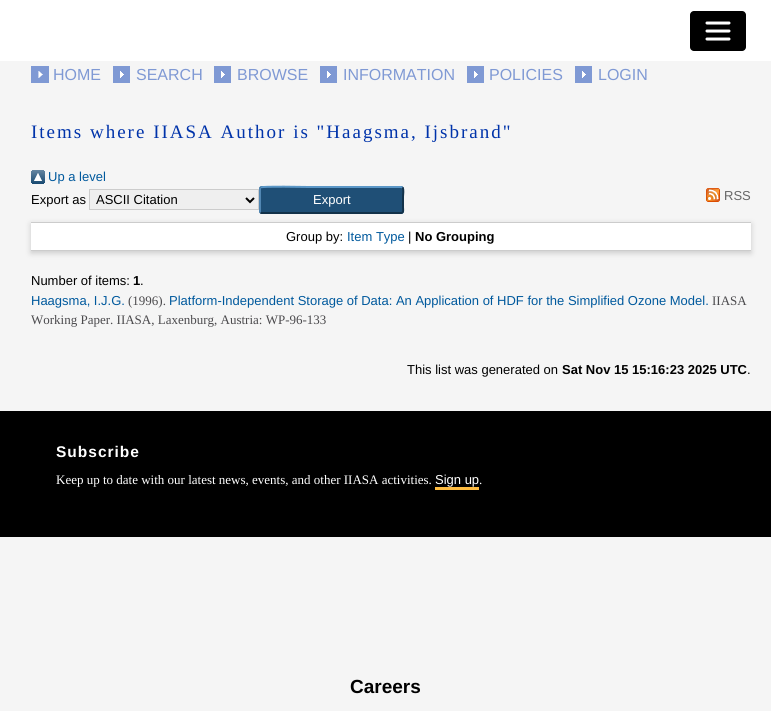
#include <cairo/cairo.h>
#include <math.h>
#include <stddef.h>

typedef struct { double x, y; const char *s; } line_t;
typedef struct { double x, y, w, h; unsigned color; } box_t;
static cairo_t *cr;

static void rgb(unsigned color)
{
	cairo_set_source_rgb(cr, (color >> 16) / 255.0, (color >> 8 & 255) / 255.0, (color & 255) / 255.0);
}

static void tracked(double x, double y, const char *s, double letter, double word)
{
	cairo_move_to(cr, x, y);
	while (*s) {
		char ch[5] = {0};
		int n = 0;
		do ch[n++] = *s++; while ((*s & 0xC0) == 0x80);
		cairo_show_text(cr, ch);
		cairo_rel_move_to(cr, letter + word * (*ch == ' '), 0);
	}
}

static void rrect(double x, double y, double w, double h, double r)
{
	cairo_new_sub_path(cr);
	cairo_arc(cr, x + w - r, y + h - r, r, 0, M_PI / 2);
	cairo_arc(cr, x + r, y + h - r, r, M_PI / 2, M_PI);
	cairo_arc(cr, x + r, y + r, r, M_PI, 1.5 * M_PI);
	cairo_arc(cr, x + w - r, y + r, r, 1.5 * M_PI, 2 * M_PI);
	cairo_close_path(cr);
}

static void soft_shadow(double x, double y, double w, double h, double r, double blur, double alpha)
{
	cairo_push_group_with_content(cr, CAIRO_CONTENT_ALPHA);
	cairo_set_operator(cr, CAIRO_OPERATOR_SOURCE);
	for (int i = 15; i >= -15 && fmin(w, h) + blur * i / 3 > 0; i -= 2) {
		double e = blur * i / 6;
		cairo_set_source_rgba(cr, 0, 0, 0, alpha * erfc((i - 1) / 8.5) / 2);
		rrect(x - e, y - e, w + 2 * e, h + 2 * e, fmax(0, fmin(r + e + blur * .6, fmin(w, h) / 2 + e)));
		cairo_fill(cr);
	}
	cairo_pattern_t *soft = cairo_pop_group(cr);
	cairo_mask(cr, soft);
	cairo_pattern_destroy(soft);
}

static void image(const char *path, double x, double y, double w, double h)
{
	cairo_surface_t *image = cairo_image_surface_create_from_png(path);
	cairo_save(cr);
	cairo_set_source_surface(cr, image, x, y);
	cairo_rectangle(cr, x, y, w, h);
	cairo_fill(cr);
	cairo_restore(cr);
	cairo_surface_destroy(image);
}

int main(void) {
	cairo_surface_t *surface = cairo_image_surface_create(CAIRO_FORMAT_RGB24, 771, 711);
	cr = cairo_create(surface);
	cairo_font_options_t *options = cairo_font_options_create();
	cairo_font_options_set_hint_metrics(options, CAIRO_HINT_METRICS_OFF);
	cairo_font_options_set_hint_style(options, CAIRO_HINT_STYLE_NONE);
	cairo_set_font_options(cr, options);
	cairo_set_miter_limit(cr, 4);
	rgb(0xf5f5f5);
	cairo_paint(cr);
	rgb(0xffffff);
	cairo_rectangle(cr, 0, 0, 771, 61);
	cairo_fill(cr);
	rgb(0x000000);
	rrect(690, 11, 56, 40, 4);
	cairo_fill(cr);
	cairo_new_path(cr);
	cairo_move_to(cr, 707, 23);
	cairo_line_to(cr, 729, 23);
	cairo_move_to(cr, 707, 31);
	cairo_line_to(cr, 729, 31);
	cairo_move_to(cr, 707, 39);
	cairo_line_to(cr, 729, 39);
	rgb(0xffffff);
	cairo_set_line_width(cr, 3);
	cairo_set_line_cap(cr, CAIRO_LINE_CAP_ROUND);
	cairo_stroke(cr);
	image("img/1.png", 31, 66, 18, 17);
	image("img/2.png", 113, 66, 17, 17);
	image("img/2.png", 214, 66, 17, 17);
	image("img/2.png", 320, 66, 17, 17);
	image("img/2.png", 467, 66, 17, 17);
	image("img/2.png", 575, 66, 17, 17);
	image("img/3.png", 31, 170, 14, 14);
	rgb(0xefefef);
	cairo_rectangle(cr, 89.5, 189.5, 169, 20);
	cairo_fill_preserve(cr);
	rgb(0xcccccc);
	cairo_set_line_width(cr, 1);
	cairo_set_line_cap(cr, CAIRO_LINE_CAP_BUTT);
	cairo_stroke(cr);
	cairo_new_path(cr);
	cairo_move_to(cr, 246, 198);
	cairo_line_to(cr, 250, 202);
	cairo_line_to(cr, 254, 198);
	rgb(0x000000);
	cairo_set_line_width(cr, 2);
	cairo_stroke(cr);
	rgb(0x1f4f76);
	rrect(259, 186, 145, 28, 3);
	cairo_fill(cr);
	cairo_new_path(cr);
	cairo_move_to(cr, 260.5, 187.5);
	cairo_curve_to(cr, 262, 186, 305.5, 187, 308.5, 187);
	cairo_line_to(cr, 401, 187);
	cairo_line_to(cr, 402.5, 187.5);
	rgb(0x5b97c7);
	cairo_stroke(cr);
	cairo_new_path(cr);
	cairo_move_to(cr, 402.5, 187.5);
	cairo_curve_to(cr, 404, 189.5, 403, 194.5, 403, 196.5);
	cairo_line_to(cr, 403, 207.5);
	cairo_curve_to(cr, 403, 209, 404, 213, 401, 213);
	cairo_line_to(cr, 261.5, 213);
	cairo_line_to(cr, 260.5, 212.5);
	rgb(0x13324a);
	cairo_stroke(cr);
	cairo_new_path(cr);
	cairo_move_to(cr, 260.5, 212.5);
	cairo_curve_to(cr, 260, 212, 260, 211.5, 260, 211);
	cairo_line_to(cr, 260, 189);
	cairo_curve_to(cr, 260, 188.5, 260, 188, 260.5, 187.5);
	rgb(0x5287b3);
	cairo_stroke(cr);
	image("img/4.png", 706, 188, 14, 14);
	rgb(0x646464);
	soft_shadow(31, 224, 720, 29, 0, 3, 0.3);
	{
		static const box_t items[] = {
			{31, 223, 720, 27, 0xffffff},
			{31, 222, 720, 1, 0xcccccc},
			{31, 250, 720, 1, 0xcccccc},
			{0, 411, 771, 126, 0x000000},
			{435, 487, 44, 3, 0xfdbb40},
		};
		for (size_t i = 0; i < sizeof items / sizeof *items; i++) {
			rgb(items[i].color);
			cairo_rectangle(cr, items[i].x, items[i].y, items[i].w, items[i].h);
			cairo_fill(cr);
		}
	}
	cairo_select_font_face(cr, "Liberation Sans", CAIRO_FONT_SLANT_NORMAL, CAIRO_FONT_WEIGHT_NORMAL);
	cairo_set_font_size(cr, 16);
	rgb(0x7f99d4);
	{
		static const line_t items[] = {
			{53, 80, "HOME"},
			{136, 80, "SEARCH"},
			{237, 80, "BROWSE"},
			{343, 80, "INFORMATION"},
			{489, 80, "POLICIES"},
			{598, 80, "LOGIN"},
		};
		for (size_t i = 0; i < sizeof items / sizeof *items; i++) {
			cairo_move_to(cr, items[i].x, items[i].y);
			cairo_show_text(cr, items[i].s);
		}
	}
	cairo_select_font_face(cr, "Liberation Serif", CAIRO_FONT_SLANT_NORMAL, CAIRO_FONT_WEIGHT_NORMAL);
	cairo_set_font_size(cr, 19);
	rgb(0x0033aa);
	tracked(31, 138, "Items where IIASA Author is \"Haagsma, Ijsbrand\"", 2, 0);
	cairo_select_font_face(cr, "Liberation Sans", CAIRO_FONT_SLANT_NORMAL, CAIRO_FONT_WEIGHT_NORMAL);
	cairo_set_font_size(cr, 13);
	rgb(0x00599d);
	cairo_move_to(cr, 48, 181);
	cairo_show_text(cr, "Up a level");
	rgb(0x000000);
	cairo_move_to(cr, 31, 204);
	cairo_show_text(cr, "Export as");
	cairo_move_to(cr, 96, 204);
	cairo_show_text(cr, "ASCII Citation");
	rgb(0xffffff);
	cairo_move_to(cr, 313, 204);
	cairo_show_text(cr, "Export");
	rgb(0x666666);
	cairo_move_to(cr, 724, 200);
	cairo_show_text(cr, "RSS");
	rgb(0x000000);
	cairo_move_to(cr, 286, 241);
	cairo_show_text(cr, "Group by:");
	rgb(0x00599d);
	cairo_move_to(cr, 347, 241);
	cairo_show_text(cr, "Item Type");
	rgb(0x000000);
	cairo_move_to(cr, 408, 241);
	cairo_show_text(cr, "|");
	cairo_select_font_face(cr, "Liberation Sans", CAIRO_FONT_SLANT_NORMAL, CAIRO_FONT_WEIGHT_BOLD);
	cairo_move_to(cr, 415, 241);
	cairo_show_text(cr, "No Grouping");
	cairo_select_font_face(cr, "Liberation Sans", CAIRO_FONT_SLANT_NORMAL, CAIRO_FONT_WEIGHT_NORMAL);
	cairo_move_to(cr, 31, 285);
	cairo_show_text(cr, "Number of items:");
	cairo_select_font_face(cr, "Liberation Sans", CAIRO_FONT_SLANT_NORMAL, CAIRO_FONT_WEIGHT_BOLD);
	cairo_move_to(cr, 133, 285);
	cairo_show_text(cr, "1");
	cairo_select_font_face(cr, "Liberation Sans", CAIRO_FONT_SLANT_NORMAL, CAIRO_FONT_WEIGHT_NORMAL);
	cairo_move_to(cr, 140, 285);
	cairo_show_text(cr, ".");
	rgb(0x00599d);
	cairo_move_to(cr, 31, 305);
	cairo_show_text(cr, "Haagsma, I.J.G.");
	cairo_select_font_face(cr, "Liberation Serif", CAIRO_FONT_SLANT_NORMAL, CAIRO_FONT_WEIGHT_NORMAL);
	rgb(0x4b4a4d);
	cairo_move_to(cr, 128, 305);
	cairo_show_text(cr, "(1996).");
	cairo_select_font_face(cr, "Liberation Sans", CAIRO_FONT_SLANT_NORMAL, CAIRO_FONT_WEIGHT_NORMAL);
	rgb(0x00599d);
	cairo_move_to(cr, 169, 305);
	cairo_show_text(cr, "Platform-Independent Storage of Data: An Application of HDF for the Simplified Ozone Model.");
	cairo_select_font_face(cr, "Liberation Serif", CAIRO_FONT_SLANT_NORMAL, CAIRO_FONT_WEIGHT_NORMAL);
	rgb(0x4b4a4d);
	cairo_move_to(cr, 712, 305);
	cairo_show_text(cr, "IIASA");
	cairo_move_to(cr, 31, 324);
	cairo_show_text(cr, "Working Paper. IIASA, Laxenburg, Austria: WP-96-133");
	cairo_select_font_face(cr, "Liberation Sans", CAIRO_FONT_SLANT_NORMAL, CAIRO_FONT_WEIGHT_NORMAL);
	rgb(0x000000);
	cairo_move_to(cr, 407, 374);
	cairo_show_text(cr, "This list was generated on");
	cairo_select_font_face(cr, "Liberation Sans", CAIRO_FONT_SLANT_NORMAL, CAIRO_FONT_WEIGHT_BOLD);
	cairo_move_to(cr, 562, 374);
	cairo_show_text(cr, "Sat Nov 15 15:16:23 2025 UTC");
	cairo_select_font_face(cr, "Liberation Sans", CAIRO_FONT_SLANT_NORMAL, CAIRO_FONT_WEIGHT_NORMAL);
	cairo_move_to(cr, 747, 374);
	cairo_show_text(cr, ".");
	cairo_select_font_face(cr, "Liberation Sans", CAIRO_FONT_SLANT_NORMAL, CAIRO_FONT_WEIGHT_BOLD);
	cairo_set_font_size(cr, 15.5);
	rgb(0xffffff);
	tracked(56, 457, "Subscribe", 1, 0);
	cairo_select_font_face(cr, "Liberation Serif", CAIRO_FONT_SLANT_NORMAL, CAIRO_FONT_WEIGHT_NORMAL);
	cairo_set_font_size(cr, 13);
	cairo_move_to(cr, 56, 484);
	cairo_show_text(cr, "Keep up to date with our latest news, events, and other IIASA activities.");
	cairo_select_font_face(cr, "Liberation Sans", CAIRO_FONT_SLANT_NORMAL, CAIRO_FONT_WEIGHT_NORMAL);
	cairo_move_to(cr, 435, 484);
	cairo_show_text(cr, "Sign up");
	cairo_select_font_face(cr, "Liberation Serif", CAIRO_FONT_SLANT_NORMAL, CAIRO_FONT_WEIGHT_NORMAL);
	cairo_move_to(cr, 479, 484);
	cairo_show_text(cr, ".");
	cairo_select_font_face(cr, "Liberation Sans", CAIRO_FONT_SLANT_NORMAL, CAIRO_FONT_WEIGHT_BOLD);
	cairo_set_font_size(cr, 19);
	rgb(0x000000);
	cairo_move_to(cr, 350, 693);
	cairo_show_text(cr, "Careers");
	cairo_surface_write_to_png(surface, "page.png");
	cairo_font_options_destroy(options);
	cairo_destroy(cr);
	cairo_surface_destroy(surface);
	return 0;
}
